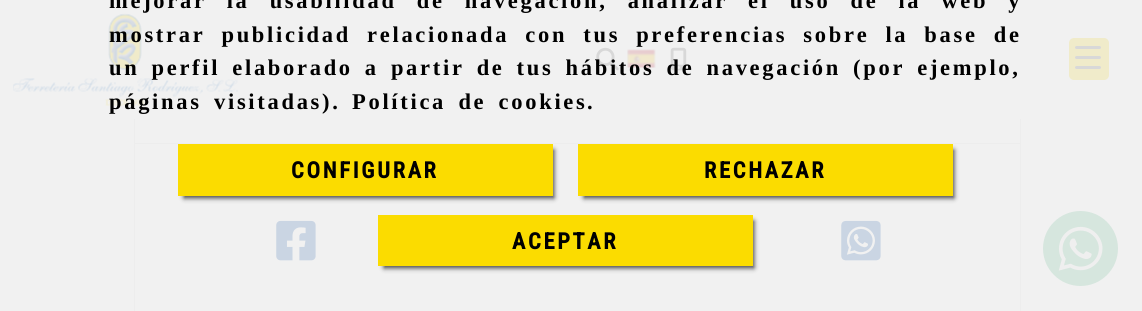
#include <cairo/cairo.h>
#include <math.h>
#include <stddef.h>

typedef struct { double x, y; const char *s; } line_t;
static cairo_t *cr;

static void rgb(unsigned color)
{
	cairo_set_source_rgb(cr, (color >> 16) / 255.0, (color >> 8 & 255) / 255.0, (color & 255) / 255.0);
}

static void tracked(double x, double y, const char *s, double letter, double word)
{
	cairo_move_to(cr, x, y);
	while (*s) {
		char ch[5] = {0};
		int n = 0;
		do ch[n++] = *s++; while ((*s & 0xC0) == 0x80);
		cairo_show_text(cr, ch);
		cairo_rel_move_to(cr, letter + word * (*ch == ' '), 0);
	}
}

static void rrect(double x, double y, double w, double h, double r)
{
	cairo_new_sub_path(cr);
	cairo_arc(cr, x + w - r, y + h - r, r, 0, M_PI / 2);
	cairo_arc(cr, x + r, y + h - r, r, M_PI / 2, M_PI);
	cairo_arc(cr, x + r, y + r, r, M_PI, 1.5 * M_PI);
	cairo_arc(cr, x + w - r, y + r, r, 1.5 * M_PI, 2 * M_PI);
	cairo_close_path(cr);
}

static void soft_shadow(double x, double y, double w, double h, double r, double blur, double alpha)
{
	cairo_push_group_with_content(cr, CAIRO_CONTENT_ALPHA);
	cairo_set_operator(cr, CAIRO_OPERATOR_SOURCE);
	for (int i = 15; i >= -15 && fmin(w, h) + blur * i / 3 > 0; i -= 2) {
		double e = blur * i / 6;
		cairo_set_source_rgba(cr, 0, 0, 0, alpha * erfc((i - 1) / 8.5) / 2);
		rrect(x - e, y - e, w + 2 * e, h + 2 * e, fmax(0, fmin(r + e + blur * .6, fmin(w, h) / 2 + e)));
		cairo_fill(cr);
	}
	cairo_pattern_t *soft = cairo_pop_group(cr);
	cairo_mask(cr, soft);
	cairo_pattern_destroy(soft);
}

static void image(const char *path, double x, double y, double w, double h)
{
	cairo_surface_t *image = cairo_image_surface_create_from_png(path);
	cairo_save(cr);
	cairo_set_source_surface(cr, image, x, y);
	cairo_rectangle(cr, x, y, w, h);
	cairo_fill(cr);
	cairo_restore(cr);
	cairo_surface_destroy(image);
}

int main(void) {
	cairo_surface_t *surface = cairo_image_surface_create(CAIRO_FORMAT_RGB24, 1142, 311);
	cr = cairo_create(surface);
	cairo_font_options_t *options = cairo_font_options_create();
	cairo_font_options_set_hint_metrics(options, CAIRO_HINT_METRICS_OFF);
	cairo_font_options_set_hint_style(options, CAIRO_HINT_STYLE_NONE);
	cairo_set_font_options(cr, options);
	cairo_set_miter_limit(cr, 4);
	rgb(0xf1f1f1);
	cairo_paint(cr);
	cairo_rectangle(cr, 134.5, -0.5, 886, 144);
	rgb(0xededed);
	cairo_set_line_width(cr, 1);
	cairo_stroke(cr);
	cairo_rectangle(cr, 1020, 144, 1, 167);
	cairo_fill(cr);
	cairo_rectangle(cr, 134, 144, 1, 167);
	cairo_fill(cr);
	image("img/1.png", 276, 220, 40, 41);
	image("img/2.png", 841, 220, 40, 41);
	rgb(0xf1f1f1);
	cairo_rectangle(cr, 134, 0, 887, 119);
	cairo_fill(cr);
	image("img/3.png", 13, 13, 225, 93);
	image("img/4.png", 596, 47, 23, 24);
	image("img/5.png", 627, 49, 29, 19);
	image("img/6.png", 670, 47, 17, 24);
	rgb(0xf0ebca);
	rrect(1069, 38, 40, 42, 5);
	cairo_fill(cr);
	rgb(0xd8d8d8);
	rrect(1075, 56, 26, 3, 1.5);
	cairo_fill(cr);
	rrect(1075, 46, 26, 3, 1.5);
	cairo_fill(cr);
	rrect(1075, 66, 26, 3, 1.5);
	cairo_fill(cr);
	rgb(0x000000);
	soft_shadow(184, 150, 370, 48, 0, 2.5, 0.75);
	rgb(0xfbdc00);
	cairo_rectangle(cr, 178, 144, 375, 52);
	cairo_fill(cr);
	rgb(0x000000);
	soft_shadow(584, 150, 370, 48, 0, 2.5, 0.75);
	rgb(0xfbdc00);
	cairo_rectangle(cr, 578, 144, 375, 52);
	cairo_fill(cr);
	rgb(0x000000);
	soft_shadow(384, 221, 370, 47, 0, 2.5, 0.75);
	rgb(0xfbdc00);
	cairo_rectangle(cr, 378, 215, 375, 51);
	cairo_fill(cr);
	rgb(0xd6e6de);
	cairo_arc(cr, 1080.5, 248.5, 37.5, 0, 2 * M_PI);
	cairo_fill(cr);
	image("img/7.png", 1058, 226, 45, 45);
	cairo_select_font_face(cr, "Liberation Serif", CAIRO_FONT_SLANT_NORMAL, CAIRO_FONT_WEIGHT_BOLD);
	cairo_set_font_size(cr, 22.5);
	rgb(0x000000);
	tracked(109, 8, "mejorar la usabilidad de navegación, analizar el uso de la web y", 2.7, 11.75);
	tracked(109, 42, "mostrar publicidad relacionada con tus preferencias sobre la base de", 2.7, 7.75);
	tracked(109, 75, "un perfil elaborado a partir de tus hábitos de navegación (por ejemplo,", 2.7, 3.75);
	tracked(109, 109, "páginas visitadas).", 2.7, 4);
	tracked(352, 109, "Política de cookies", 2.7, 4);
	tracked(587, 109, ".", 2.7, 0);
	cairo_select_font_face(cr, "Roboto Condensed", CAIRO_FONT_SLANT_NORMAL, CAIRO_FONT_WEIGHT_BOLD);
	{
		static const line_t items[] = {
			{291, 178, "CONFIGURAR"},
			{704, 178, "RECHAZAR"},
			{512, 249, "ACEPTAR"},
		};
		for (size_t i = 0; i < sizeof items / sizeof *items; i++) {
			tracked(items[i].x, items[i].y, items[i].s, 2.7, 0);
		}
	}
	cairo_surface_write_to_png(surface, "page.png");
	cairo_font_options_destroy(options);
	cairo_destroy(cr);
	cairo_surface_destroy(surface);
	return 0;
}
